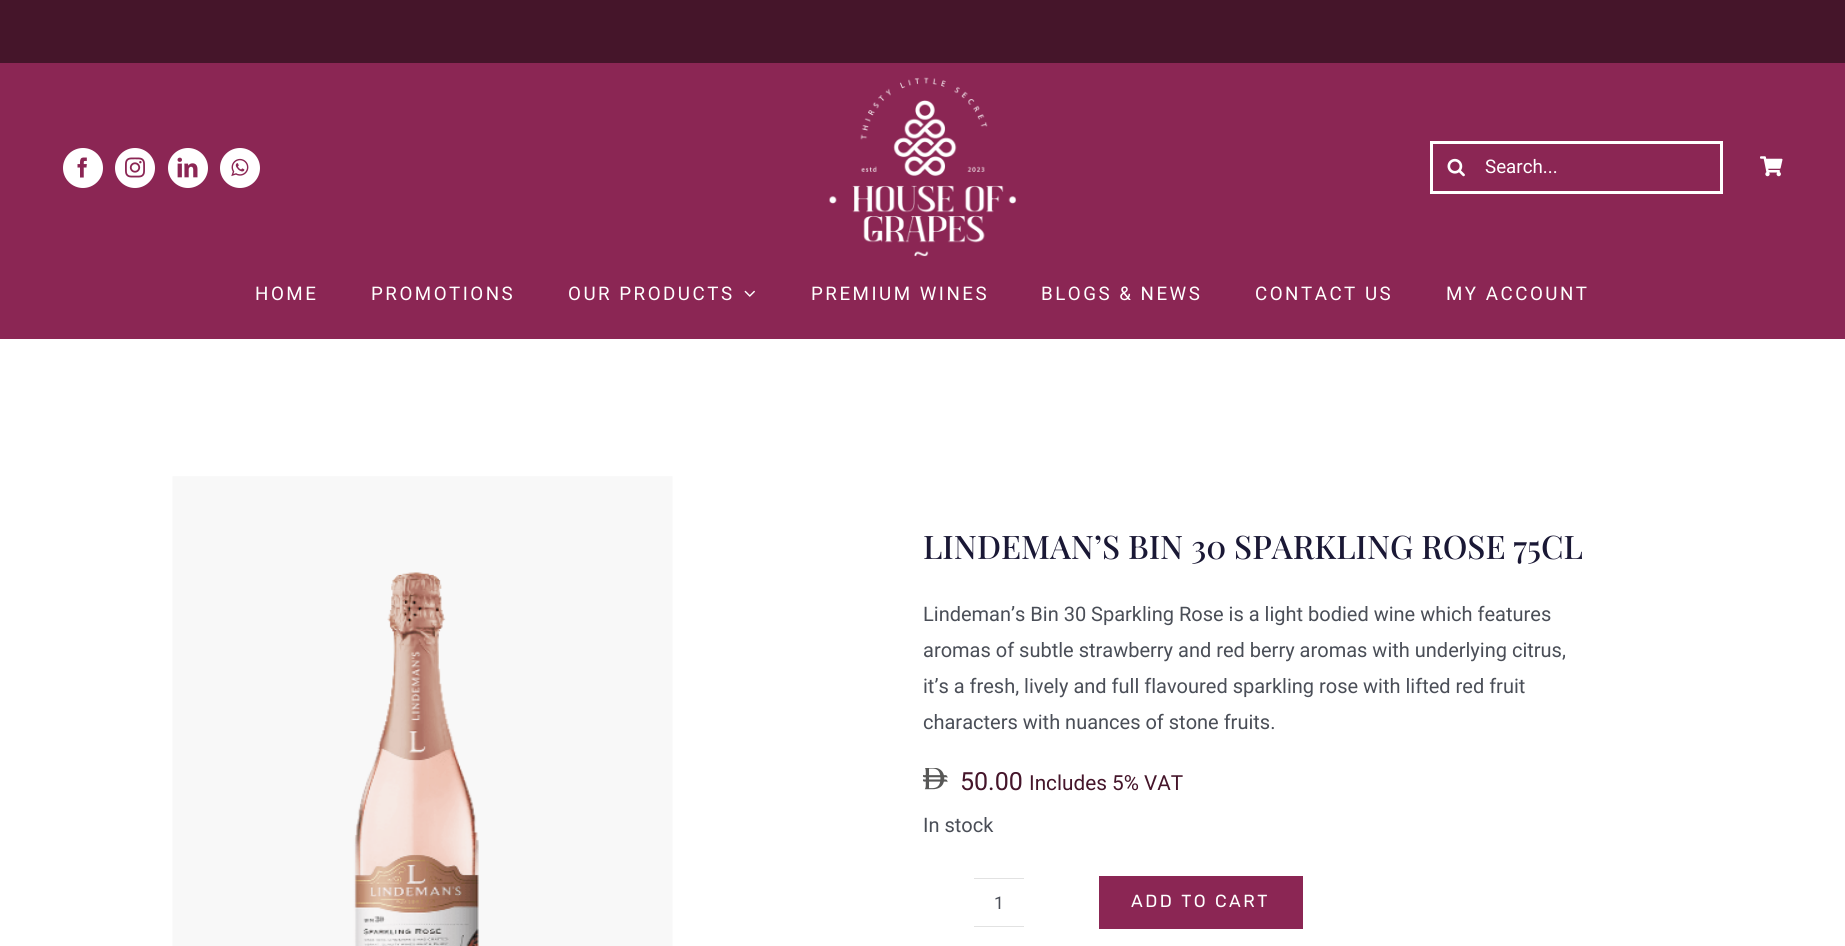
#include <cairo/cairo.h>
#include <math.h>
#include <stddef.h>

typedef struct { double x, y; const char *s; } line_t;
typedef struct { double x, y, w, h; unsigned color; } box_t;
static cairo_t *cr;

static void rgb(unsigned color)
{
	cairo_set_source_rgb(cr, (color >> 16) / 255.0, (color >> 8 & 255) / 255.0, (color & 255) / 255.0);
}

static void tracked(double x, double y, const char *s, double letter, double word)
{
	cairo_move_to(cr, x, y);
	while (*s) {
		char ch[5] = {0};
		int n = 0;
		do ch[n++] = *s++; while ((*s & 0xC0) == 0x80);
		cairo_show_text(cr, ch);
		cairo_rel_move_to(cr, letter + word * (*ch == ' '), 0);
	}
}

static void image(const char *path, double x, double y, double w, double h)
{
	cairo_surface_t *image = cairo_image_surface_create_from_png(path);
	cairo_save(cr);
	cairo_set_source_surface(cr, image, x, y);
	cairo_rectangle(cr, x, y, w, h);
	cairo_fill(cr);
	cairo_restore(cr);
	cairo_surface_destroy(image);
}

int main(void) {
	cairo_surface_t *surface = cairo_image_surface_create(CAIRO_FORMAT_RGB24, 1845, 946);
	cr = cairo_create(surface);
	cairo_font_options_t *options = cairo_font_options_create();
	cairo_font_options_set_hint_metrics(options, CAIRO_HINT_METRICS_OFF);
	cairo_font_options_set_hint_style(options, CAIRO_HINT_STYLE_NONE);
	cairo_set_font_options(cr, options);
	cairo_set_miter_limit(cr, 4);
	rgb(0xffffff);
	cairo_paint(cr);
	rgb(0x45152a);
	cairo_rectangle(cr, 0, 0, 1845, 63);
	cairo_fill(cr);
	rgb(0x8b2654);
	cairo_rectangle(cr, 0, 63, 1845, 276);
	cairo_fill(cr);
	rgb(0xffffff);
	cairo_arc(cr, 83, 168, 20, 0, 2 * M_PI);
	cairo_fill(cr);
	image("img/1.png", 77, 157, 10, 21);
	cairo_arc(cr, 135, 168, 20, 0, 2 * M_PI);
	cairo_fill(cr);
	image("img/2.png", 125, 157, 20, 21);
	cairo_arc(cr, 188, 168, 20, 0, 2 * M_PI);
	cairo_fill(cr);
	image("img/3.png", 177, 157, 21, 21);
	cairo_arc(cr, 240, 168, 20, 0, 2 * M_PI);
	cairo_fill(cr);
	image("img/4.png", 231, 158, 18, 19);
	image("img/5.png", 829, 77, 188, 180);
	cairo_rectangle(cr, 1431.5, 142.5, 290, 50);
	cairo_set_line_width(cr, 3);
	cairo_stroke(cr);
	image("img/6.png", 1447, 158, 18, 19);
	image("img/7.png", 1760, 156, 23, 21);
	image("img/8.png", 744, 290, 11, 7);
	image("img/9.png", 172, 476, 501, 470);
	image("img/10.png", 923, 768, 25, 22);
	{
		static const box_t items[] = {
			{974, 878, 50, 1, 0xe2e2e2},
			{974, 926, 50, 1, 0xe2e2e2},
			{1099, 876, 204, 53, 0x8b2654},
		};
		for (size_t i = 0; i < sizeof items / sizeof *items; i++) {
			rgb(items[i].color);
			cairo_rectangle(cr, items[i].x, items[i].y, items[i].w, items[i].h);
			cairo_fill(cr);
		}
	}
	cairo_select_font_face(cr, "Roboto", CAIRO_FONT_SLANT_NORMAL, CAIRO_FONT_WEIGHT_NORMAL);
	cairo_set_font_size(cr, 18.75);
	rgb(0xffffff);
	cairo_move_to(cr, 1485, 173);
	cairo_show_text(cr, "Search...");
	{
		static const line_t items[] = {
			{255, 300, "HOME"},
			{371, 300, "PROMOTIONS"},
			{568, 300, "OUR PRODUCTS"},
			{811, 300, "PREMIUM WINES"},
			{1041, 300, "BLOGS & NEWS"},
			{1255, 300, "CONTACT US"},
			{1446, 300, "MY ACCOUNT"},
		};
		for (size_t i = 0; i < sizeof items / sizeof *items; i++) {
			tracked(items[i].x, items[i].y, items[i].s, 2.5, 0);
		}
	}
	cairo_select_font_face(cr, "Playfair Display Medium", CAIRO_FONT_SLANT_NORMAL, CAIRO_FONT_WEIGHT_NORMAL);
	cairo_set_font_size(cr, 32.5);
	rgb(0x1a1835);
	cairo_move_to(cr, 923, 559);
	cairo_show_text(cr, "LINDEMAN’S BIN 30 SPARKLING ROSE 75CL");
	cairo_select_font_face(cr, "Roboto", CAIRO_FONT_SLANT_NORMAL, CAIRO_FONT_WEIGHT_NORMAL);
	cairo_set_font_size(cr, 20);
	rgb(0x4a4e57);
	{
		static const line_t items[] = {
			{923, 621, "Lindeman’s Bin 30 Sparkling Rose is a light bodied wine which features"},
			{923, 657, "aromas of subtle strawberry and red berry aromas with underlying citrus,"},
			{923, 693, "it’s a fresh, lively and full flavoured sparkling rose with lifted red fruit"},
			{923, 729, "characters with nuances of stone fruits."},
		};
		for (size_t i = 0; i < sizeof items / sizeof *items; i++) {
			cairo_move_to(cr, items[i].x, items[i].y);
			cairo_show_text(cr, items[i].s);
		}
	}
	cairo_set_font_size(cr, 25);
	rgb(0x45152a);
	cairo_move_to(cr, 960, 790);
	cairo_show_text(cr, "50.00");
	cairo_set_font_size(cr, 20.75);
	cairo_move_to(cr, 1029, 790);
	cairo_show_text(cr, "Includes 5% VAT");
	cairo_set_font_size(cr, 20);
	rgb(0x4a4e57);
	cairo_move_to(cr, 923, 832);
	cairo_show_text(cr, "In stock");
	cairo_set_font_size(cr, 17.5);
	cairo_move_to(cr, 994, 909);
	cairo_show_text(cr, "1");
	cairo_select_font_face(cr, "Rubik", CAIRO_FONT_SLANT_NORMAL, CAIRO_FONT_WEIGHT_NORMAL);
	rgb(0xffffff);
	tracked(1131, 907, "ADD TO CART", 2.5, 0);
	cairo_surface_write_to_png(surface, "page.png");
	cairo_font_options_destroy(options);
	cairo_destroy(cr);
	cairo_surface_destroy(surface);
	return 0;
}
